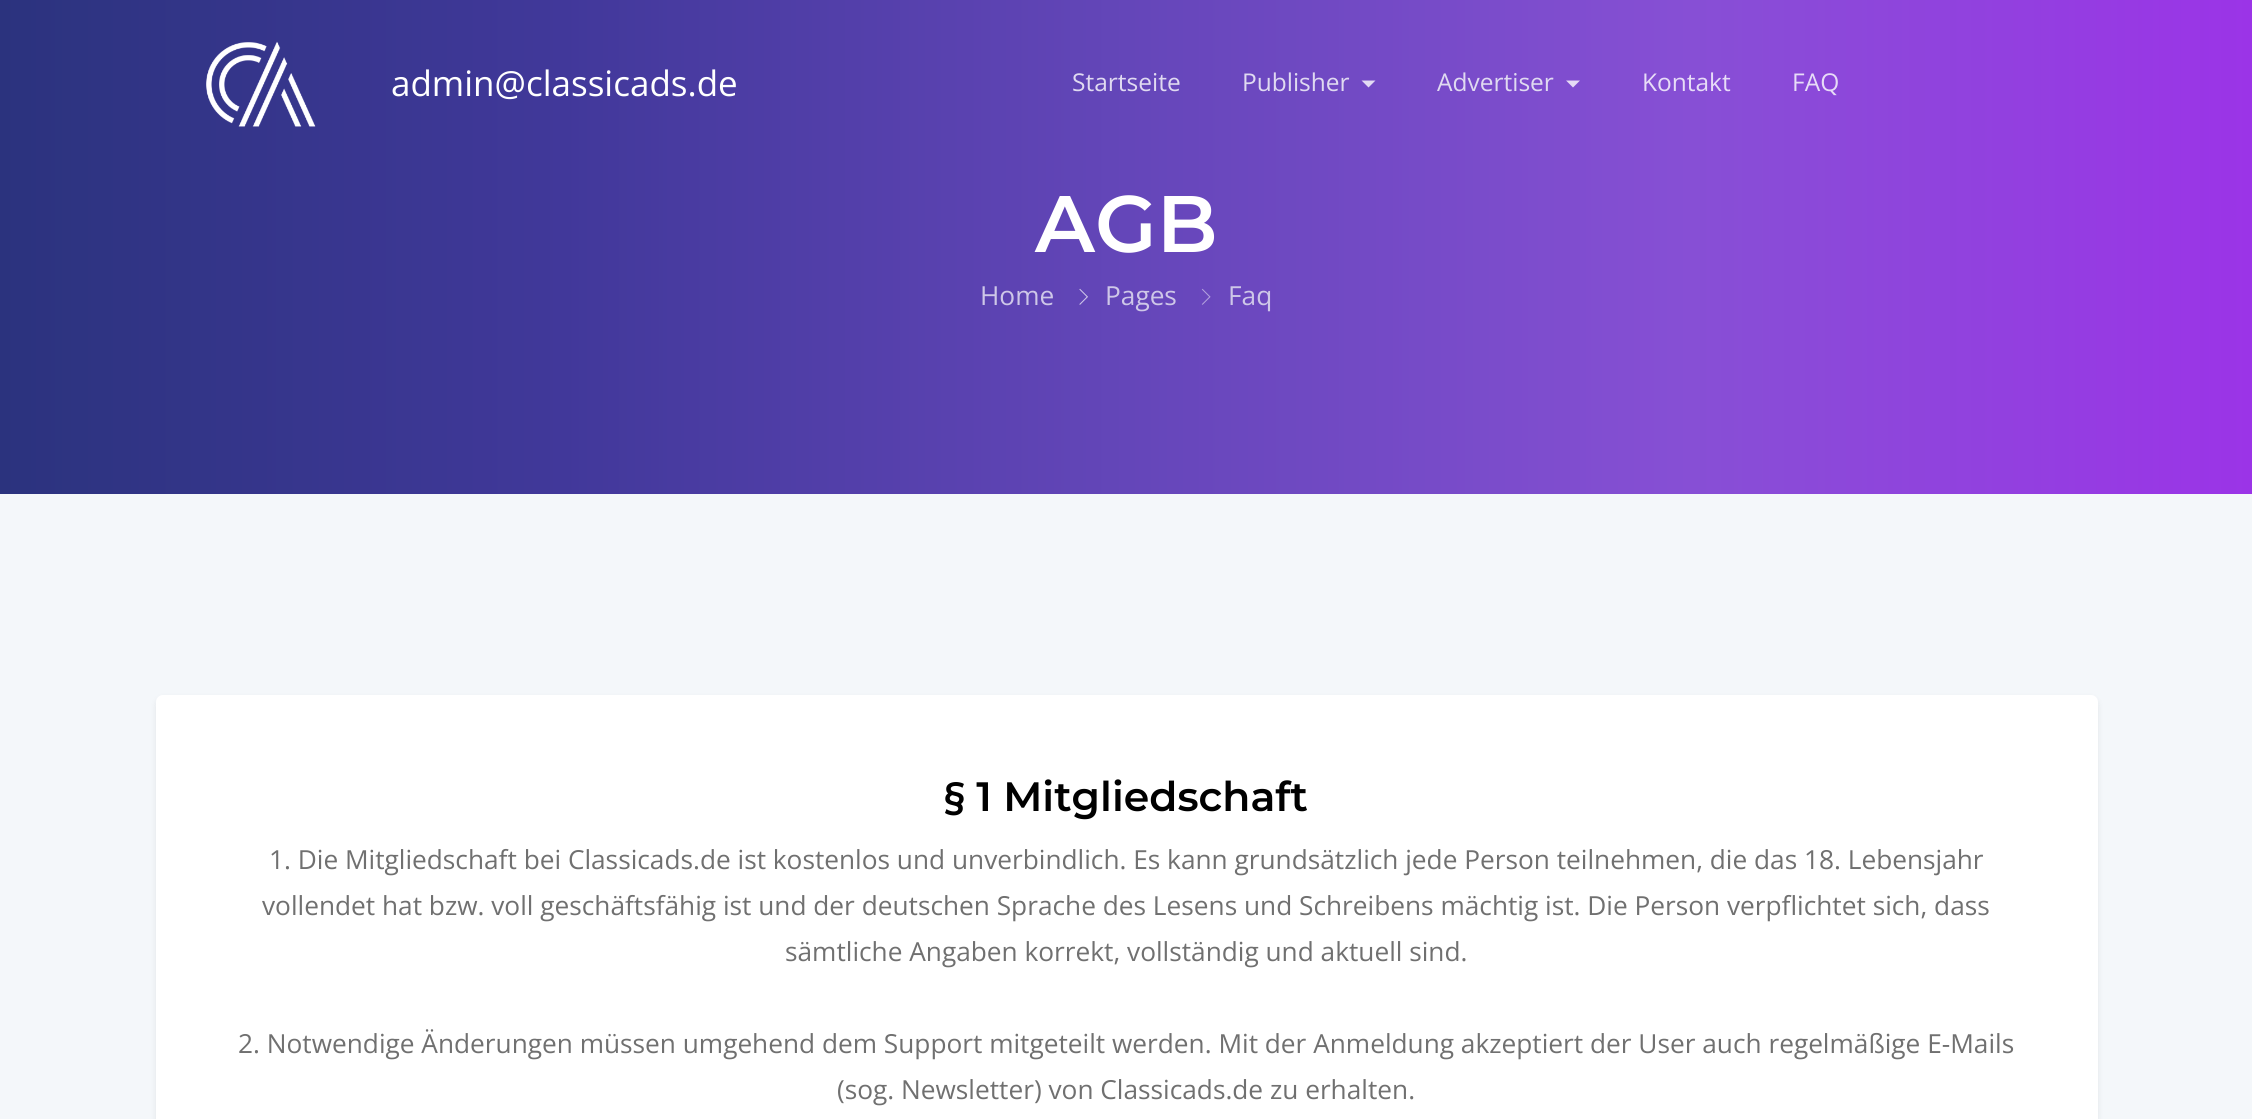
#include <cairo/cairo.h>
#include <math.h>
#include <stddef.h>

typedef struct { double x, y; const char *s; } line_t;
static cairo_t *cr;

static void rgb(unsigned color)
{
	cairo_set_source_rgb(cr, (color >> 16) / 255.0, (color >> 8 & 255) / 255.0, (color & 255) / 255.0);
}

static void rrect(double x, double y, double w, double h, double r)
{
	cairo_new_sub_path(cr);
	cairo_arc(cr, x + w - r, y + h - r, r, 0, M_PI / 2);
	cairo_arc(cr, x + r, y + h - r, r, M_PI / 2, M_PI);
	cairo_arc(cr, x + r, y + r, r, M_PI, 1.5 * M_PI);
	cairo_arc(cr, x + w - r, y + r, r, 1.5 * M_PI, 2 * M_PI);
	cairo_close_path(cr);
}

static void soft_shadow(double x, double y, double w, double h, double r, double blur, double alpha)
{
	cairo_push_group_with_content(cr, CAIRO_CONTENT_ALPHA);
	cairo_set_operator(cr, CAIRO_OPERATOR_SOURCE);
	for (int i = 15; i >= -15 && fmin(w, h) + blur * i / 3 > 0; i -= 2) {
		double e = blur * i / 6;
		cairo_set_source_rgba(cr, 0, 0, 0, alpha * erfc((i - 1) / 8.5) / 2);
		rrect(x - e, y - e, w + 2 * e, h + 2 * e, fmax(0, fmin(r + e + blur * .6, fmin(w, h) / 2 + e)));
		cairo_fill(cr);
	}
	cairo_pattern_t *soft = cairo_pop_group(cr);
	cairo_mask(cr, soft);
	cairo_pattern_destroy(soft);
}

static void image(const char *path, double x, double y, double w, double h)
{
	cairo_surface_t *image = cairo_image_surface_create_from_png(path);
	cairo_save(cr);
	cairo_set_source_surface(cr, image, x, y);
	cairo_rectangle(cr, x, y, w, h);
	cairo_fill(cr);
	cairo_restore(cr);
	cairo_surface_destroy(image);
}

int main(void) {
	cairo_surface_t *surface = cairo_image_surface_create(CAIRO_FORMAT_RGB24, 2252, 1119);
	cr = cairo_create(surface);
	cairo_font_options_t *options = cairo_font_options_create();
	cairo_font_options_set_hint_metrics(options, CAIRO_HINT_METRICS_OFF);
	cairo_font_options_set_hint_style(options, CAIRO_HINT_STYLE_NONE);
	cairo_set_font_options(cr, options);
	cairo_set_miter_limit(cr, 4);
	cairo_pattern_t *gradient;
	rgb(0xf4f7fa);
	cairo_paint(cr);
	gradient = cairo_pattern_create_linear(0, 247, 2252, 247);
	cairo_pattern_add_color_stop_rgba(gradient, 0, 0.169, 0.2, 0.494, 1);
	cairo_pattern_add_color_stop_rgba(gradient, 0.25, 0.255, 0.22, 0.604, 1);
	cairo_pattern_add_color_stop_rgba(gradient, 0.5, 0.392, 0.275, 0.725, 1);
	cairo_pattern_add_color_stop_rgba(gradient, 0.75, 0.529, 0.31, 0.835, 1);
	cairo_pattern_add_color_stop_rgba(gradient, 1, 0.608, 0.204, 0.906, 1);
	cairo_set_source(cr, gradient);
	cairo_pattern_destroy(gradient);
	cairo_rectangle(cr, 0, 0, 2252, 494);
	cairo_fill(cr);
	image("img/1.png", 206, 41, 110, 86);
	rgb(0xe3dbf3);
	cairo_new_path(cr);
	cairo_move_to(cr, 1361.5, 80.5);
	cairo_line_to(cr, 1375.5, 80.5);
	cairo_line_to(cr, 1368.5, 87.5);
	cairo_close_path(cr);
	cairo_fill(cr);
	rgb(0xe6dbf5);
	cairo_new_path(cr);
	cairo_move_to(cr, 1566, 80.5);
	cairo_line_to(cr, 1580, 80.5);
	cairo_line_to(cr, 1573, 87.5);
	cairo_close_path(cr);
	cairo_fill(cr);
	image("img/2.png", 1079, 288, 9, 17);
	image("img/3.png", 1201, 288, 10, 17);
	rgb(0x000000);
	soft_shadow(156, 698, 1942, 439, 7, 3.5, 0.07);
	rgb(0xffffff);
	rrect(156, 695, 1942, 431, 7);
	cairo_fill(cr);
	cairo_select_font_face(cr, "Open Sans", CAIRO_FONT_SLANT_NORMAL, CAIRO_FONT_WEIGHT_NORMAL);
	cairo_set_font_size(cr, 35);
	cairo_move_to(cr, 391, 96);
	cairo_show_text(cr, "admin@classicads.de");
	cairo_set_font_size(cr, 24.5);
	rgb(0xe0daf1);
	{
		static const line_t items[] = {
			{1072, 91, "Startseite"},
			{1242, 91, "Publisher"},
			{1437, 91, "Advertiser"},
		};
		for (size_t i = 0; i < sizeof items / sizeof *items; i++) {
			cairo_move_to(cr, items[i].x, items[i].y);
			cairo_show_text(cr, items[i].s);
		}
	}
	rgb(0xe7dcf7);
	cairo_move_to(cr, 1642, 91);
	cairo_show_text(cr, "Kontakt");
	cairo_move_to(cr, 1792, 91);
	cairo_show_text(cr, "FAQ");
	cairo_select_font_face(cr, "Montserrat SemiBold", CAIRO_FONT_SLANT_NORMAL, CAIRO_FONT_WEIGHT_NORMAL);
	cairo_set_font_size(cr, 80);
	rgb(0xffffff);
	cairo_move_to(cr, 1035, 252);
	cairo_show_text(cr, "AGB");
	cairo_select_font_face(cr, "Open Sans", CAIRO_FONT_SLANT_NORMAL, CAIRO_FONT_WEIGHT_NORMAL);
	cairo_set_font_size(cr, 26.25);
	rgb(0xcec7e8);
	{
		static const line_t items[] = {
			{980, 305, "Home"},
			{1105, 305, "Pages"},
			{1228, 305, "Faq"},
		};
		for (size_t i = 0; i < sizeof items / sizeof *items; i++) {
			cairo_move_to(cr, items[i].x, items[i].y);
			cairo_show_text(cr, items[i].s);
		}
	}
	cairo_select_font_face(cr, "Montserrat SemiBold", CAIRO_FONT_SLANT_NORMAL, CAIRO_FONT_WEIGHT_NORMAL);
	cairo_set_font_size(cr, 41);
	rgb(0x000000);
	cairo_move_to(cr, 944, 811);
	cairo_show_text(cr, "§ 1 Mitgliedschaft");
	cairo_select_font_face(cr, "Open Sans", CAIRO_FONT_SLANT_NORMAL, CAIRO_FONT_WEIGHT_NORMAL);
	cairo_set_font_size(cr, 26.25);
	rgb(0x707070);
	{
		static const line_t items[] = {
			{269, 869, "1. Die Mitgliedschaft bei Classicads.de ist kostenlos und unverbindlich. Es kann grundsätzlich jede Person teilnehmen, die das 18. Lebensjahr"},
			{262, 915, "vollendet hat bzw. voll geschäftsfähig ist und der deutschen Sprache des Lesens und Schreibens mächtig ist. Die Person verpflichtet sich, dass"},
			{785, 961, "sämtliche Angaben korrekt, vollständig und aktuell sind."},
			{238, 1053, "2. Notwendige Änderungen müssen umgehend dem Support mitgeteilt werden. Mit der Anmeldung akzeptiert der User auch regelmäßige E-Mails"},
			{837, 1099, "(sog. Newsletter) von Classicads.de zu erhalten."},
		};
		for (size_t i = 0; i < sizeof items / sizeof *items; i++) {
			cairo_move_to(cr, items[i].x, items[i].y);
			cairo_show_text(cr, items[i].s);
		}
	}
	cairo_surface_write_to_png(surface, "page.png");
	cairo_font_options_destroy(options);
	cairo_destroy(cr);
	cairo_surface_destroy(surface);
	return 0;
}
